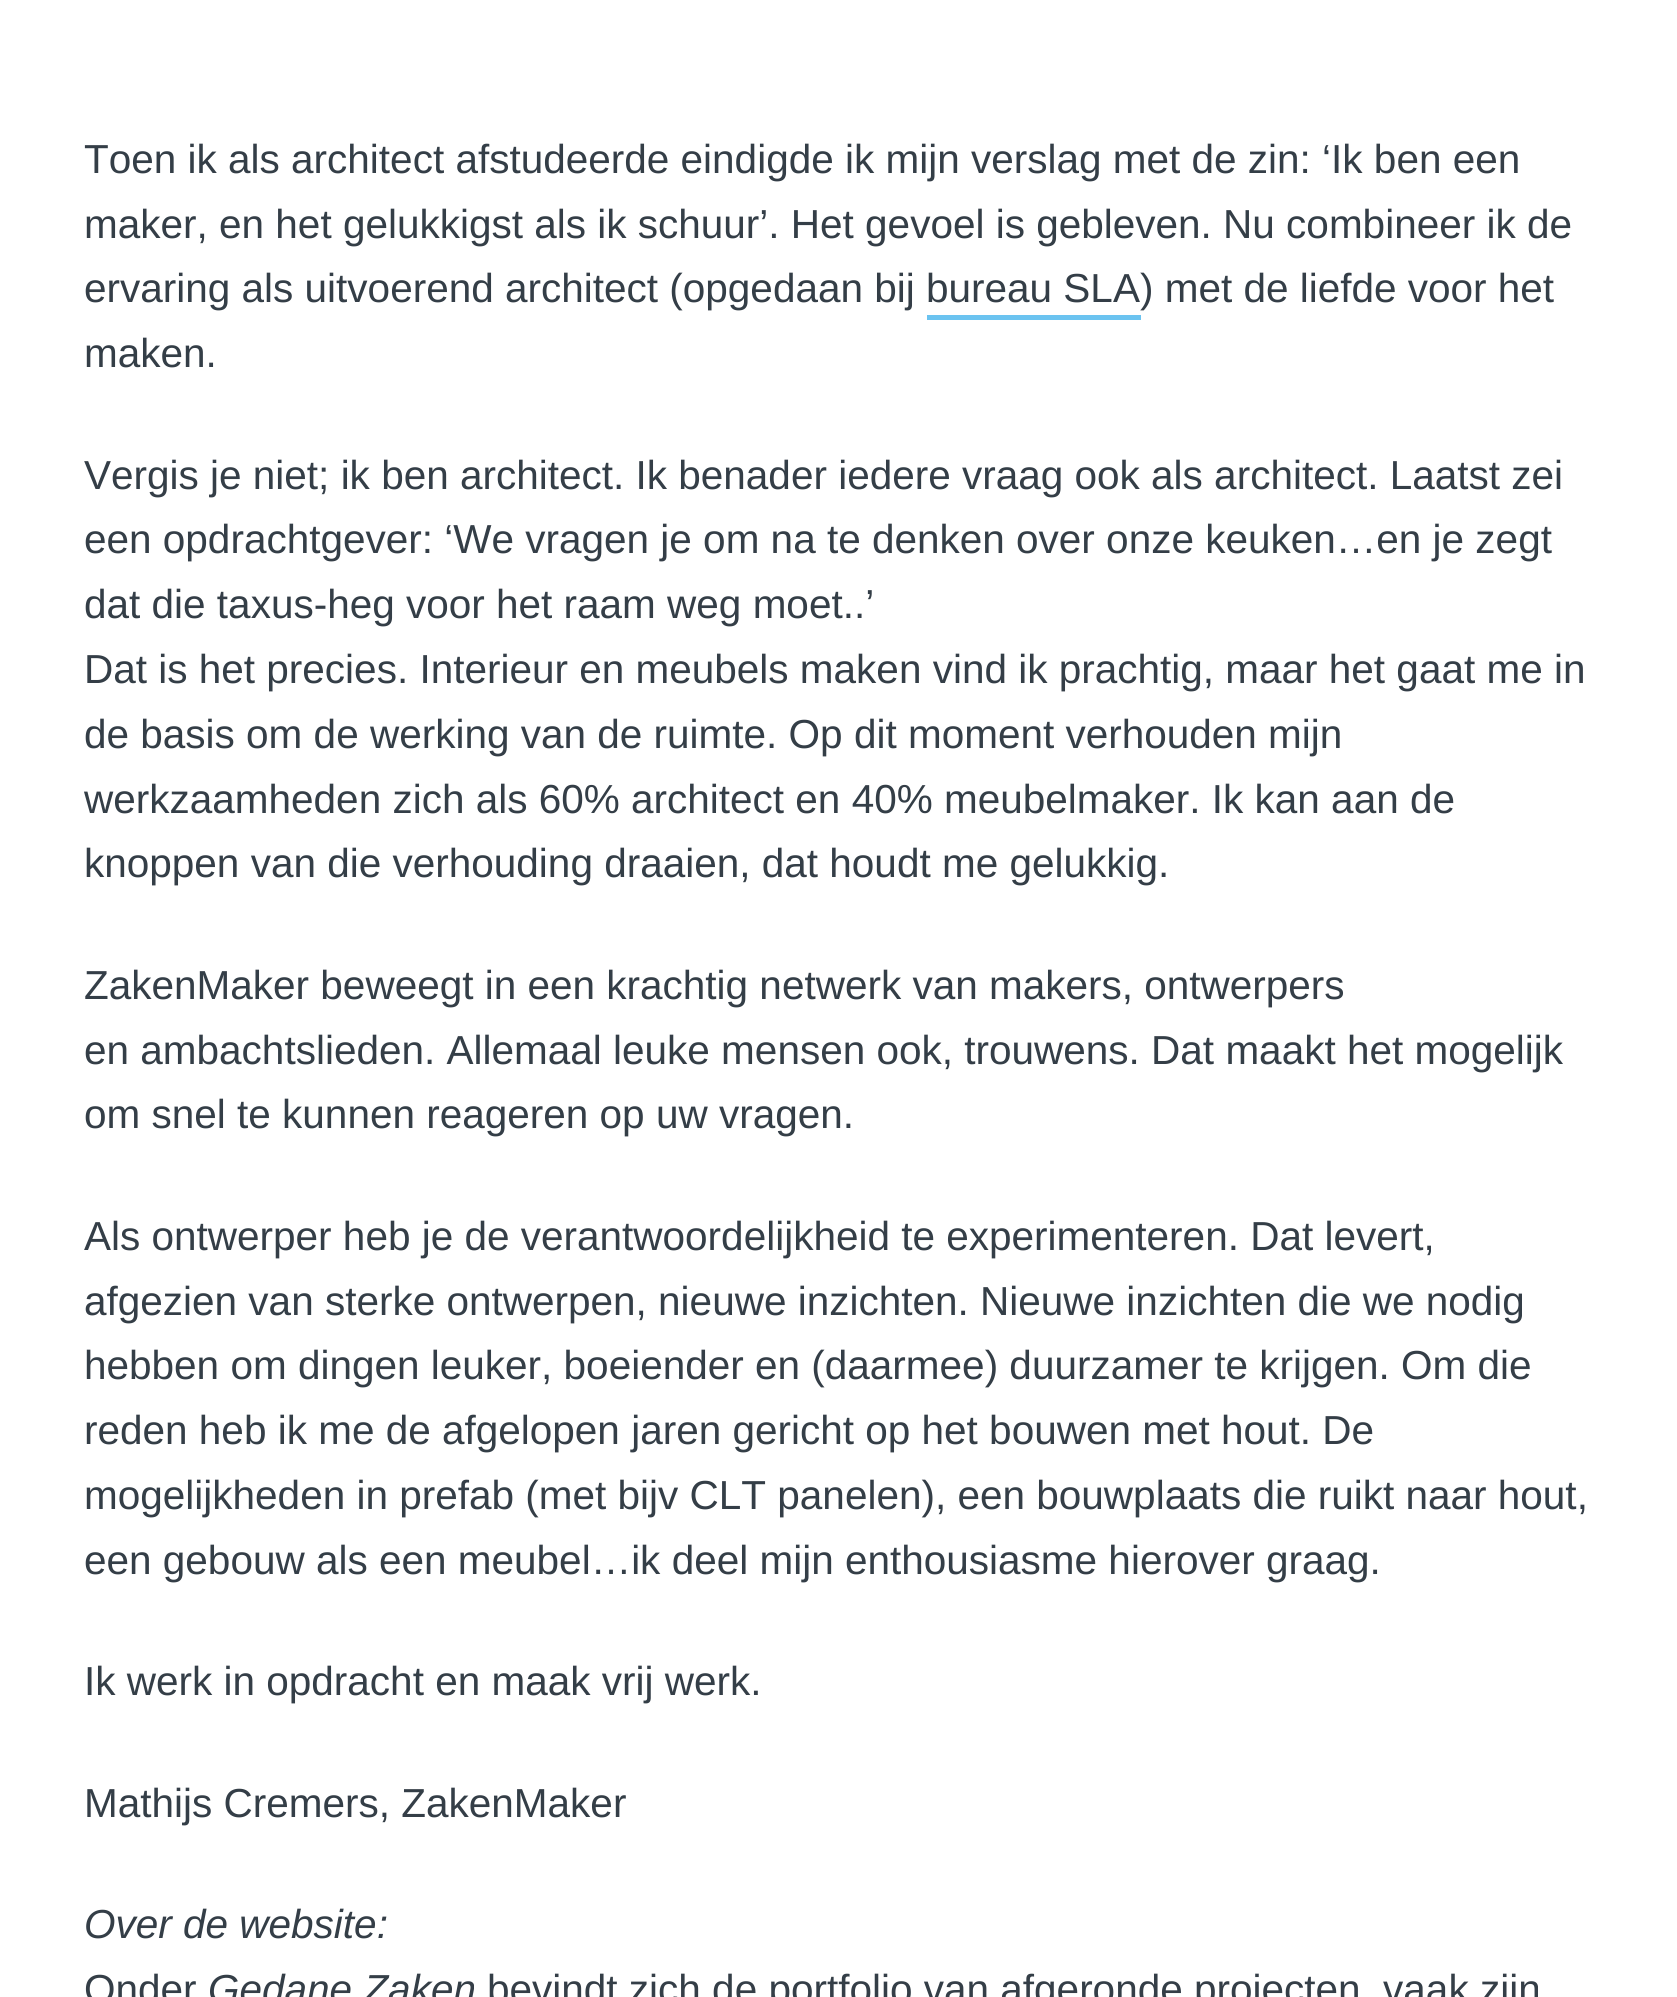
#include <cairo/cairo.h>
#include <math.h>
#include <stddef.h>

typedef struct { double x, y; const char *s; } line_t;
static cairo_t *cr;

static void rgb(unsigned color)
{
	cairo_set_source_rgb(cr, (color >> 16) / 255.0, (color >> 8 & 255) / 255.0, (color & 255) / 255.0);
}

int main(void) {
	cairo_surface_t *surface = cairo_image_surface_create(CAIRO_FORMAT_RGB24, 1677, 1997);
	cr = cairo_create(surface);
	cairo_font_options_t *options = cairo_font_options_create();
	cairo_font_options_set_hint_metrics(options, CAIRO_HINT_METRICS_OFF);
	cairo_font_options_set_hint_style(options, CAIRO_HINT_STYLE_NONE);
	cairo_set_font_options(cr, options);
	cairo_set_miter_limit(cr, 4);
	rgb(0xffffff);
	cairo_paint(cr);
	rgb(0x6bc3f0);
	cairo_rectangle(cr, 927, 315, 214, 5);
	cairo_fill(cr);
	cairo_select_font_face(cr, "Arimo", CAIRO_FONT_SLANT_NORMAL, CAIRO_FONT_WEIGHT_NORMAL);
	cairo_set_font_size(cr, 40.5);
	rgb(0x343e47);
	{
		static const line_t items[] = {
			{84, 173, "Toen ik als architect afstudeerde eindigde ik mijn verslag met de zin: ‘Ik ben een"},
			{84, 238, "maker, en het gelukkigst als ik schuur’. Het gevoel is gebleven. Nu combineer ik de"},
			{84, 302, "ervaring als uitvoerend architect (opgedaan bij bureau SLA) met de liefde voor het"},
			{84, 367, "maken."},
			{84, 489, "Vergis je niet; ik ben architect. Ik benader iedere vraag ook als architect. Laatst zei"},
			{84, 553, "een opdrachtgever: ‘We vragen je om na te denken over onze keuken…en je zegt"},
			{84, 618, "dat die taxus-heg voor het raam weg moet..’"},
			{84, 683, "Dat is het precies. Interieur en meubels maken vind ik prachtig, maar het gaat me in"},
			{84, 748, "de basis om de werking van de ruimte. Op dit moment verhouden mijn"},
			{84, 813, "werkzaamheden zich als 60% architect en 40% meubelmaker. Ik kan aan de"},
			{84, 877, "knoppen van die verhouding draaien, dat houdt me gelukkig."},
			{84, 999, "ZakenMaker beweegt in een krachtig netwerk van makers, ontwerpers"},
			{84, 1064, "en ambachtslieden. Allemaal leuke mensen ook, trouwens. Dat maakt het mogelijk"},
			{84, 1128, "om snel te kunnen reageren op uw vragen."},
			{84, 1250, "Als ontwerper heb je de verantwoordelijkheid te experimenteren. Dat levert,"},
			{84, 1315, "afgezien van sterke ontwerpen, nieuwe inzichten. Nieuwe inzichten die we nodig"},
			{84, 1379, "hebben om dingen leuker, boeiender en (daarmee) duurzamer te krijgen. Om die"},
			{84, 1444, "reden heb ik me de afgelopen jaren gericht op het bouwen met hout. De"},
			{84, 1509, "mogelijkheden in prefab (met bijv CLT panelen), een bouwplaats die ruikt naar hout,"},
			{84, 1574, "een gebouw als een meubel…ik deel mijn enthousiasme hierover graag."},
			{84, 1695, "Ik werk in opdracht en maak vrij werk."},
			{84, 1817, "Mathijs Cremers, ZakenMaker"},
		};
		for (size_t i = 0; i < sizeof items / sizeof *items; i++) {
			cairo_move_to(cr, items[i].x, items[i].y);
			cairo_show_text(cr, items[i].s);
		}
	}
	cairo_select_font_face(cr, "Arimo", CAIRO_FONT_SLANT_ITALIC, CAIRO_FONT_WEIGHT_NORMAL);
	cairo_move_to(cr, 84, 1938);
	cairo_show_text(cr, "Over de website:");
	cairo_select_font_face(cr, "Arimo", CAIRO_FONT_SLANT_NORMAL, CAIRO_FONT_WEIGHT_NORMAL);
	cairo_move_to(cr, 84, 2003);
	cairo_show_text(cr, "Onder");
	cairo_select_font_face(cr, "Arimo", CAIRO_FONT_SLANT_ITALIC, CAIRO_FONT_WEIGHT_NORMAL);
	cairo_move_to(cr, 208, 2003);
	cairo_show_text(cr, "Gedane Zaken");
	cairo_select_font_face(cr, "Arimo", CAIRO_FONT_SLANT_NORMAL, CAIRO_FONT_WEIGHT_NORMAL);
	cairo_move_to(cr, 487, 2003);
	cairo_show_text(cr, "bevindt zich de portfolio van afgeronde projecten, vaak zijn");
	cairo_surface_write_to_png(surface, "page.png");
	cairo_font_options_destroy(options);
	cairo_destroy(cr);
	cairo_surface_destroy(surface);
	return 0;
}
